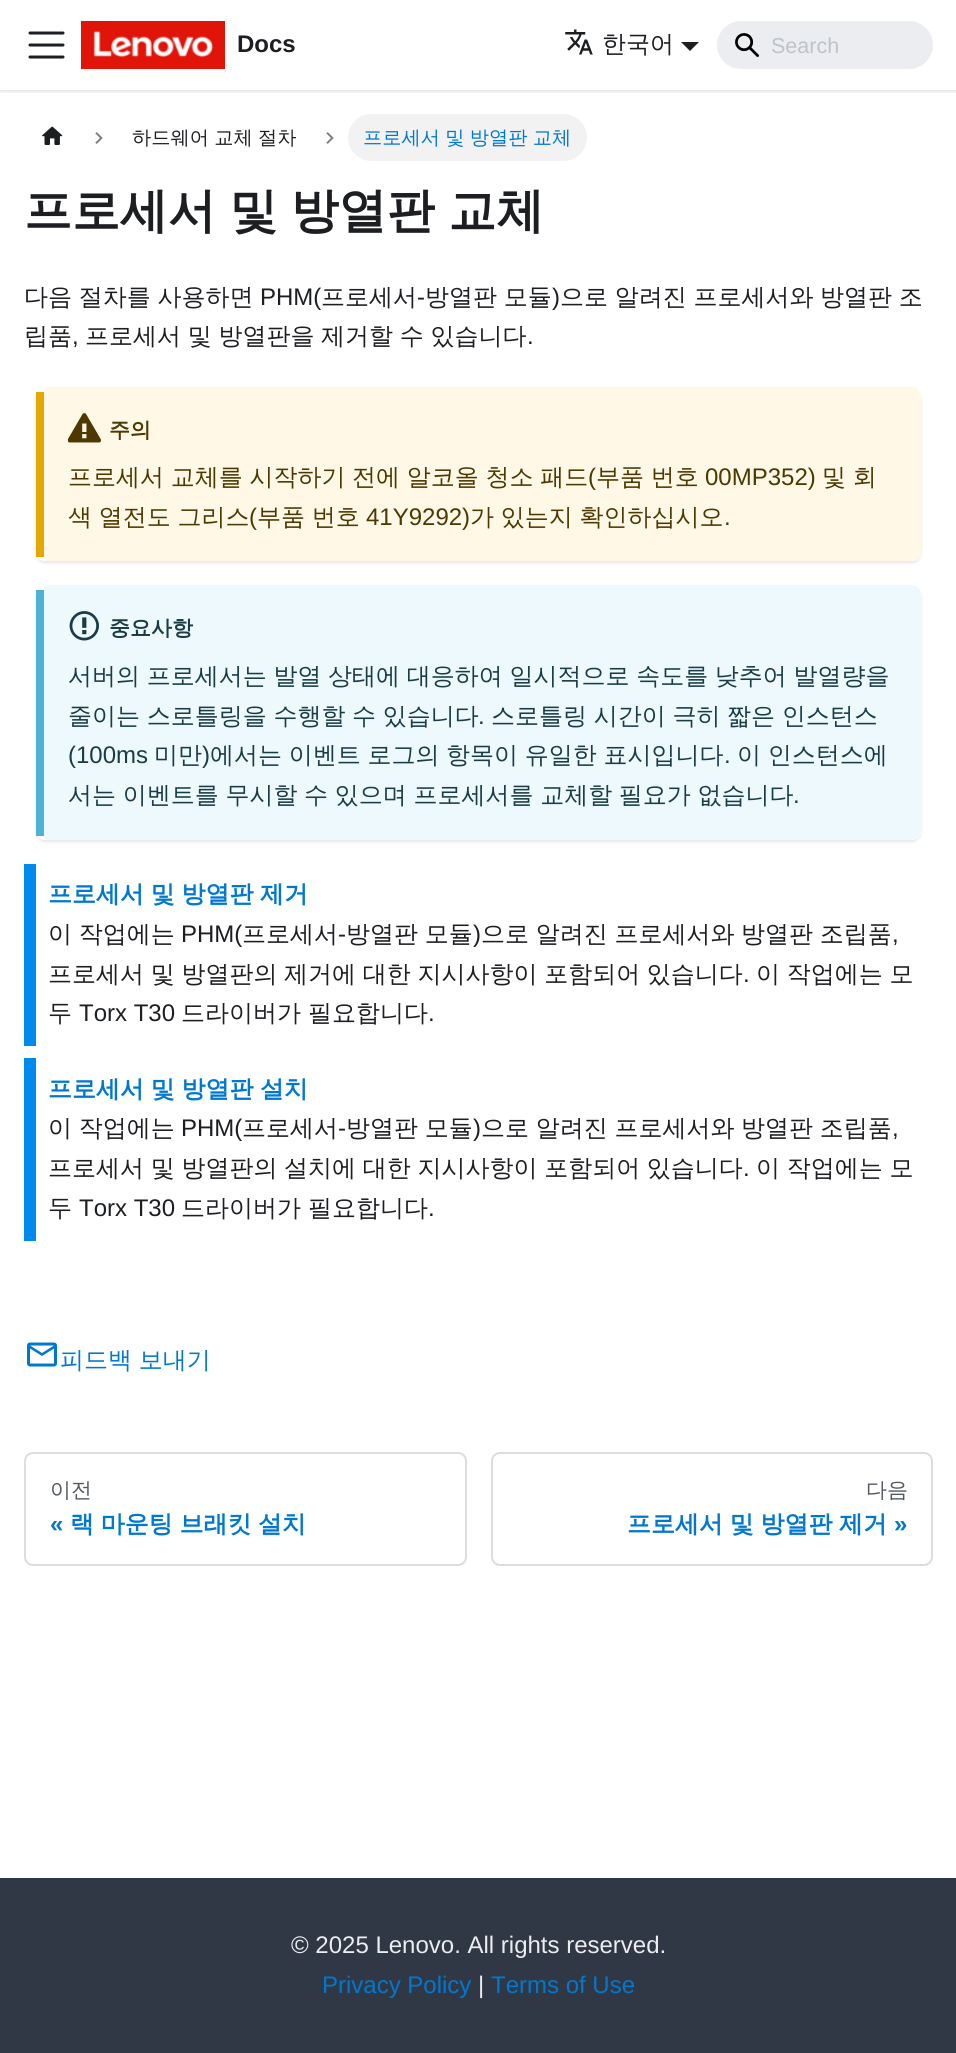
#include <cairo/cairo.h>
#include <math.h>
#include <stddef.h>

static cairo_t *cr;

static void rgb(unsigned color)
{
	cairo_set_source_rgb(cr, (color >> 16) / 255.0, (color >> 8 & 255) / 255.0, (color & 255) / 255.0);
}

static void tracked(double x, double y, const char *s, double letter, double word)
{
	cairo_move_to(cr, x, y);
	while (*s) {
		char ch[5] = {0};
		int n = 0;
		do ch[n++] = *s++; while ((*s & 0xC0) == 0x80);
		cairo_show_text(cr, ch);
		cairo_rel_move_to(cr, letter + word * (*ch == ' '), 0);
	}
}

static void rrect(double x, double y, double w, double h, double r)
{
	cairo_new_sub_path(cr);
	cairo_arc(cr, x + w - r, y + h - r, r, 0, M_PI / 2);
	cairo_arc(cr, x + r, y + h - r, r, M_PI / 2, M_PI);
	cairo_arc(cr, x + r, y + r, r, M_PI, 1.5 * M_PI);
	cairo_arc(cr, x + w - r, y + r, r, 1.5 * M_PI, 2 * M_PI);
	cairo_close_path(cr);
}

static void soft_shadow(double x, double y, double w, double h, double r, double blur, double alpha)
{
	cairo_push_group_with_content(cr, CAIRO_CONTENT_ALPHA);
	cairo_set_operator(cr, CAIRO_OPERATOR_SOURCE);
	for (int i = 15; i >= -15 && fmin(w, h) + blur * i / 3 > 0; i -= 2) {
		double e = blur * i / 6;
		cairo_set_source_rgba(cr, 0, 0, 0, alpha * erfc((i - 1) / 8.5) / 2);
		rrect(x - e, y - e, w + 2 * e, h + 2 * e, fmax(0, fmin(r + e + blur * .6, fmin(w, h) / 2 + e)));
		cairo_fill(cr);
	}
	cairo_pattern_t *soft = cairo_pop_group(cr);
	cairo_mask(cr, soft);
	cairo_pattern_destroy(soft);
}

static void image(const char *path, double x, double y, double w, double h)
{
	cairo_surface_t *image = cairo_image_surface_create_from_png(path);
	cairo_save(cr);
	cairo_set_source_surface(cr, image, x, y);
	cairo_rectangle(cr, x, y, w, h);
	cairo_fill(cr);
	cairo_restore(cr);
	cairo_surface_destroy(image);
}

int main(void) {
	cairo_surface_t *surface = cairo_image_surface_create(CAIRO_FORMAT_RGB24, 956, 2053);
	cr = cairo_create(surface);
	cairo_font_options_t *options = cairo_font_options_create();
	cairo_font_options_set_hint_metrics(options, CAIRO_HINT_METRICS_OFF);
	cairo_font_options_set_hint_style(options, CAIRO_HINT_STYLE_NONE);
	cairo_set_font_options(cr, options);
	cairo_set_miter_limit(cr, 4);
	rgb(0xffffff);
	cairo_paint(cr);
	cairo_save(cr);
	cairo_rectangle(cr, 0, 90, 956, 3);
	cairo_clip(cr);
	rgb(0x000000);
	soft_shadow(0, 2, 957, 90, 0, 1.5, 0.1);
	cairo_restore(cr);
	cairo_new_path(cr);
	cairo_move_to(cr, 30, 33);
	cairo_line_to(cr, 63, 33);
	cairo_move_to(cr, 30, 45);
	cairo_line_to(cr, 63, 45);
	cairo_move_to(cr, 30, 57);
	cairo_line_to(cr, 63, 57);
	rgb(0x1c1e21);
	cairo_set_line_width(cr, 3);
	cairo_set_line_cap(cr, CAIRO_LINE_CAP_ROUND);
	cairo_stroke(cr);
	image("img/1.png", 81, 21, 144, 48);
	image("img/2.png", 565, 29, 28, 26);
	cairo_new_path(cr);
	cairo_move_to(cr, 681, 42);
	cairo_line_to(cr, 699, 42);
	cairo_line_to(cr, 690, 51);
	cairo_close_path(cr);
	cairo_fill(cr);
	rgb(0xebedf0);
	rrect(717, 21, 216, 48, 24);
	cairo_fill(cr);
	image("img/3.png", 735, 33, 24, 24);
	image("img/4.png", 42, 126, 21, 19);
	image("img/5.png", 95, 132, 8, 12);
	image("img/5.png", 326, 132, 8, 12);
	rgb(0xf2f2f2);
	rrect(348, 114, 239, 47, 23.5);
	cairo_fill(cr);
	cairo_save(cr);
	cairo_set_fill_rule(cr, CAIRO_FILL_RULE_EVEN_ODD);
	cairo_new_path(cr);
	cairo_move_to(cr, 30, 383);
	cairo_line_to(cr, 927, 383);
	cairo_line_to(cr, 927, 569);
	cairo_line_to(cr, 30, 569);
	cairo_close_path(cr);
	cairo_move_to(cr, 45, 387);
	cairo_line_to(cr, 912, 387);
	cairo_curve_to(cr, 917, 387, 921, 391, 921, 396);
	cairo_line_to(cr, 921, 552);
	cairo_curve_to(cr, 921, 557, 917, 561, 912, 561);
	cairo_line_to(cr, 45, 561);
	cairo_curve_to(cr, 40, 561, 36, 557, 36, 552);
	cairo_line_to(cr, 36, 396);
	cairo_curve_to(cr, 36, 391, 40, 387, 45, 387);
	cairo_close_path(cr);
	cairo_clip(cr);
	rgb(0x000000);
	soft_shadow(36, 389, 885, 174, 9, 1.5, 0.1);
	cairo_restore(cr);
	rgb(0xfff8e6);
	cairo_new_path(cr);
	cairo_move_to(cr, 46, 387);
	cairo_line_to(cr, 911, 387);
	cairo_curve_to(cr, 917, 387, 921, 391, 921, 397);
	cairo_line_to(cr, 921, 551);
	cairo_curve_to(cr, 921, 557, 917, 561, 911, 561);
	cairo_line_to(cr, 46, 561);
	cairo_curve_to(cr, 44, 561, 44, 557, 44, 551);
	cairo_line_to(cr, 44, 397);
	cairo_curve_to(cr, 44, 391, 44, 387, 46, 387);
	cairo_close_path(cr);
	cairo_fill(cr);
	rgb(0xe6a700);
	cairo_rectangle(cr, 36, 392, 8, 165);
	cairo_fill(cr);
	image("img/6.png", 68, 413, 33, 30);
	cairo_save(cr);
	cairo_set_fill_rule(cr, CAIRO_FILL_RULE_EVEN_ODD);
	cairo_new_path(cr);
	cairo_move_to(cr, 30, 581);
	cairo_line_to(cr, 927, 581);
	cairo_line_to(cr, 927, 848);
	cairo_line_to(cr, 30, 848);
	cairo_close_path(cr);
	cairo_move_to(cr, 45, 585);
	cairo_line_to(cr, 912, 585);
	cairo_curve_to(cr, 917, 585, 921, 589, 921, 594);
	cairo_line_to(cr, 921, 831);
	cairo_curve_to(cr, 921, 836, 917, 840, 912, 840);
	cairo_line_to(cr, 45, 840);
	cairo_curve_to(cr, 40, 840, 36, 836, 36, 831);
	cairo_line_to(cr, 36, 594);
	cairo_curve_to(cr, 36, 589, 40, 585, 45, 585);
	cairo_close_path(cr);
	cairo_clip(cr);
	rgb(0x000000);
	soft_shadow(36, 587, 885, 255, 9, 1.5, 0.1);
	cairo_restore(cr);
	rgb(0xeef9fd);
	cairo_new_path(cr);
	cairo_move_to(cr, 46, 585);
	cairo_line_to(cr, 911, 585);
	cairo_curve_to(cr, 917, 585, 921, 589, 921, 595);
	cairo_line_to(cr, 921, 830);
	cairo_curve_to(cr, 921, 836, 917, 840, 911, 840);
	cairo_line_to(cr, 46, 840);
	cairo_curve_to(cr, 44, 840, 44, 836, 44, 830);
	cairo_line_to(cr, 44, 595);
	cairo_curve_to(cr, 44, 589, 44, 585, 46, 585);
	cairo_close_path(cr);
	cairo_fill(cr);
	rgb(0x4cb3d4);
	cairo_rectangle(cr, 36, 590, 8, 246);
	cairo_fill(cr);
	image("img/7.png", 69, 611, 30, 30);
	rgb(0x008aef);
	cairo_rectangle(cr, 24, 864, 12, 182);
	cairo_fill(cr);
	cairo_rectangle(cr, 24, 1058, 12, 183);
	cairo_fill(cr);
	image("img/8.png", 27, 1342, 30, 25);
	rrect(25, 1453, 441, 112, 8);
	rgb(0xdadde1);
	cairo_set_line_width(cr, 2);
	cairo_set_line_cap(cr, CAIRO_LINE_CAP_BUTT);
	cairo_stroke(cr);
	rrect(492, 1453, 440, 112, 8);
	cairo_stroke(cr);
	rgb(0x303846);
	cairo_rectangle(cr, 0, 1878, 956, 175);
	cairo_fill(cr);
	cairo_select_font_face(cr, "Liberation Sans", CAIRO_FONT_SLANT_NORMAL, CAIRO_FONT_WEIGHT_BOLD);
	cairo_set_font_size(cr, 24);
	rgb(0x1c1e21);
	cairo_move_to(cr, 237, 52);
	cairo_show_text(cr, "Docs");
	cairo_select_font_face(cr, "WenQuanYi Zen Hei Medium", CAIRO_FONT_SLANT_NORMAL, CAIRO_FONT_WEIGHT_NORMAL);
	cairo_move_to(cr, 602, 52);
	cairo_show_text(cr, "한국어");
	cairo_select_font_face(cr, "Liberation Sans", CAIRO_FONT_SLANT_NORMAL, CAIRO_FONT_WEIGHT_NORMAL);
	cairo_set_font_size(cr, 21.5);
	rgb(0xbec3c9);
	cairo_move_to(cr, 771, 53);
	cairo_show_text(cr, "Search");
	cairo_select_font_face(cr, "WenQuanYi Zen Hei Medium", CAIRO_FONT_SLANT_NORMAL, CAIRO_FONT_WEIGHT_NORMAL);
	cairo_set_font_size(cr, 19.25);
	rgb(0x1c1e21);
	tracked(132, 144, "하드웨어 교체 절차", 0, -0.5);
	rgb(0x0078d0);
	tracked(363, 144, "프로세서 및 방열판 교체", 0, -0.5);
	cairo_select_font_face(cr, "WenQuanYi Zen Hei", CAIRO_FONT_SLANT_NORMAL, CAIRO_FONT_WEIGHT_BOLD);
	cairo_set_font_size(cr, 48);
	rgb(0x1c1e21);
	tracked(24, 227, "프로세서 및 방열판 교체", 0, -1);
	cairo_select_font_face(cr, "WenQuanYi Zen Hei Medium", CAIRO_FONT_SLANT_NORMAL, CAIRO_FONT_WEIGHT_NORMAL);
	cairo_set_font_size(cr, 24);
	tracked(24, 305, "다음 절차를 사용하면", 0, -0.5);
	cairo_select_font_face(cr, "Liberation Sans", CAIRO_FONT_SLANT_NORMAL, CAIRO_FONT_WEIGHT_NORMAL);
	cairo_move_to(cr, 260, 305);
	cairo_show_text(cr, "PHM(");
	cairo_select_font_face(cr, "WenQuanYi Zen Hei Medium", CAIRO_FONT_SLANT_NORMAL, CAIRO_FONT_WEIGHT_NORMAL);
	cairo_move_to(cr, 321, 305);
	cairo_show_text(cr, "프로세서");
	cairo_select_font_face(cr, "Liberation Sans", CAIRO_FONT_SLANT_NORMAL, CAIRO_FONT_WEIGHT_NORMAL);
	cairo_move_to(cr, 417, 305);
	cairo_show_text(cr, "-");
	cairo_select_font_face(cr, "WenQuanYi Zen Hei Medium", CAIRO_FONT_SLANT_NORMAL, CAIRO_FONT_WEIGHT_NORMAL);
	tracked(425, 305, "방열판 모듈", 0, -0.5);
	cairo_select_font_face(cr, "Liberation Sans", CAIRO_FONT_SLANT_NORMAL, CAIRO_FONT_WEIGHT_NORMAL);
	cairo_move_to(cr, 552, 305);
	cairo_show_text(cr, ")");
	cairo_select_font_face(cr, "WenQuanYi Zen Hei Medium", CAIRO_FONT_SLANT_NORMAL, CAIRO_FONT_WEIGHT_NORMAL);
	tracked(560, 305, "으로 알려진 프로세서와 방열판 조", 0, -0.5);
	cairo_move_to(cr, 24, 344);
	cairo_show_text(cr, "립품");
	cairo_select_font_face(cr, "Liberation Sans", CAIRO_FONT_SLANT_NORMAL, CAIRO_FONT_WEIGHT_NORMAL);
	cairo_move_to(cr, 72, 344);
	cairo_show_text(cr, ",");
	cairo_select_font_face(cr, "WenQuanYi Zen Hei Medium", CAIRO_FONT_SLANT_NORMAL, CAIRO_FONT_WEIGHT_NORMAL);
	tracked(85, 344, "프로세서 및 방열판을 제거할 수 있습니다", 0, -0.5);
	cairo_select_font_face(cr, "Liberation Sans", CAIRO_FONT_SLANT_NORMAL, CAIRO_FONT_WEIGHT_NORMAL);
	cairo_move_to(cr, 527, 344);
	cairo_show_text(cr, ".");
	cairo_select_font_face(cr, "WenQuanYi Zen Hei", CAIRO_FONT_SLANT_NORMAL, CAIRO_FONT_WEIGHT_BOLD);
	cairo_set_font_size(cr, 21);
	rgb(0x4d3800);
	cairo_move_to(cr, 109, 437);
	cairo_show_text(cr, "주의");
	cairo_select_font_face(cr, "WenQuanYi Zen Hei Medium", CAIRO_FONT_SLANT_NORMAL, CAIRO_FONT_WEIGHT_NORMAL);
	cairo_set_font_size(cr, 24);
	tracked(68, 485, "프로세서 교체를 시작하기 전에 알코올 청소 패드", 0, -0.5);
	cairo_select_font_face(cr, "Liberation Sans", CAIRO_FONT_SLANT_NORMAL, CAIRO_FONT_WEIGHT_NORMAL);
	cairo_move_to(cr, 588, 485);
	cairo_show_text(cr, "(");
	cairo_select_font_face(cr, "WenQuanYi Zen Hei Medium", CAIRO_FONT_SLANT_NORMAL, CAIRO_FONT_WEIGHT_NORMAL);
	tracked(596, 485, "부품 번호", 0, -0.5);
	cairo_select_font_face(cr, "Liberation Sans", CAIRO_FONT_SLANT_NORMAL, CAIRO_FONT_WEIGHT_NORMAL);
	cairo_move_to(cr, 705, 485);
	cairo_show_text(cr, "00MP352)");
	cairo_select_font_face(cr, "WenQuanYi Zen Hei Medium", CAIRO_FONT_SLANT_NORMAL, CAIRO_FONT_WEIGHT_NORMAL);
	tracked(822, 485, "및 회", 0, -0.5);
	tracked(68, 525, "색 열전도 그리스", 0, -0.5);
	cairo_select_font_face(cr, "Liberation Sans", CAIRO_FONT_SLANT_NORMAL, CAIRO_FONT_WEIGHT_NORMAL);
	cairo_move_to(cr, 249, 525);
	cairo_show_text(cr, "(");
	cairo_select_font_face(cr, "WenQuanYi Zen Hei Medium", CAIRO_FONT_SLANT_NORMAL, CAIRO_FONT_WEIGHT_NORMAL);
	tracked(257, 525, "부품 번호", 0, -0.5);
	cairo_select_font_face(cr, "Liberation Sans", CAIRO_FONT_SLANT_NORMAL, CAIRO_FONT_WEIGHT_NORMAL);
	cairo_move_to(cr, 366, 525);
	cairo_show_text(cr, "41Y9292)");
	cairo_select_font_face(cr, "WenQuanYi Zen Hei Medium", CAIRO_FONT_SLANT_NORMAL, CAIRO_FONT_WEIGHT_NORMAL);
	tracked(470, 525, "가 있는지 확인하십시오", 0, -0.5);
	cairo_select_font_face(cr, "Liberation Sans", CAIRO_FONT_SLANT_NORMAL, CAIRO_FONT_WEIGHT_NORMAL);
	cairo_move_to(cr, 724, 525);
	cairo_show_text(cr, ".");
	cairo_select_font_face(cr, "WenQuanYi Zen Hei", CAIRO_FONT_SLANT_NORMAL, CAIRO_FONT_WEIGHT_BOLD);
	cairo_set_font_size(cr, 21);
	rgb(0x193c47);
	cairo_move_to(cr, 109, 635);
	cairo_show_text(cr, "중요사항");
	cairo_select_font_face(cr, "WenQuanYi Zen Hei Medium", CAIRO_FONT_SLANT_NORMAL, CAIRO_FONT_WEIGHT_NORMAL);
	cairo_set_font_size(cr, 24);
	tracked(68, 684, "서버의 프로세서는 발열 상태에 대응하여 일시적으로 속도를 낮추어 발열량을", 0, -0.5);
	tracked(68, 724, "줄이는 스로틀링을 수행할 수 있습니다", 0, -0.5);
	cairo_select_font_face(cr, "Liberation Sans", CAIRO_FONT_SLANT_NORMAL, CAIRO_FONT_WEIGHT_NORMAL);
	cairo_move_to(cr, 478, 724);
	cairo_show_text(cr, ".");
	cairo_select_font_face(cr, "WenQuanYi Zen Hei Medium", CAIRO_FONT_SLANT_NORMAL, CAIRO_FONT_WEIGHT_NORMAL);
	tracked(491, 724, "스로틀링 시간이 극히 짧은 인스턴스", 0, -0.5);
	cairo_select_font_face(cr, "Liberation Sans", CAIRO_FONT_SLANT_NORMAL, CAIRO_FONT_WEIGHT_NORMAL);
	cairo_move_to(cr, 68, 763);
	cairo_show_text(cr, "(100ms");
	cairo_select_font_face(cr, "WenQuanYi Zen Hei Medium", CAIRO_FONT_SLANT_NORMAL, CAIRO_FONT_WEIGHT_NORMAL);
	cairo_move_to(cr, 154, 763);
	cairo_show_text(cr, "미만");
	cairo_select_font_face(cr, "Liberation Sans", CAIRO_FONT_SLANT_NORMAL, CAIRO_FONT_WEIGHT_NORMAL);
	cairo_move_to(cr, 202, 763);
	cairo_show_text(cr, ")");
	cairo_select_font_face(cr, "WenQuanYi Zen Hei Medium", CAIRO_FONT_SLANT_NORMAL, CAIRO_FONT_WEIGHT_NORMAL);
	tracked(210, 763, "에서는 이벤트 로그의 항목이 유일한 표시입니다", 0, -0.5);
	cairo_select_font_face(cr, "Liberation Sans", CAIRO_FONT_SLANT_NORMAL, CAIRO_FONT_WEIGHT_NORMAL);
	cairo_move_to(cr, 724, 763);
	cairo_show_text(cr, ".");
	cairo_select_font_face(cr, "WenQuanYi Zen Hei Medium", CAIRO_FONT_SLANT_NORMAL, CAIRO_FONT_WEIGHT_NORMAL);
	tracked(737, 763, "이 인스턴스에", 0, -0.5);
	tracked(68, 803, "서는 이벤트를 무시할 수 있으며 프로세서를 교체할 필요가 없습니다", 0, -0.5);
	cairo_select_font_face(cr, "Liberation Sans", CAIRO_FONT_SLANT_NORMAL, CAIRO_FONT_WEIGHT_NORMAL);
	cairo_move_to(cr, 793, 803);
	cairo_show_text(cr, ".");
	cairo_select_font_face(cr, "WenQuanYi Zen Hei", CAIRO_FONT_SLANT_NORMAL, CAIRO_FONT_WEIGHT_BOLD);
	rgb(0x0078d0);
	tracked(48, 902, "프로세서 및 방열판 제거", 0, -0.5);
	cairo_select_font_face(cr, "WenQuanYi Zen Hei Medium", CAIRO_FONT_SLANT_NORMAL, CAIRO_FONT_WEIGHT_NORMAL);
	rgb(0x1c1e21);
	tracked(48, 942, "이 작업에는", 0, -0.5);
	cairo_select_font_face(cr, "Liberation Sans", CAIRO_FONT_SLANT_NORMAL, CAIRO_FONT_WEIGHT_NORMAL);
	cairo_move_to(cr, 181, 942);
	cairo_show_text(cr, "PHM(");
	cairo_select_font_face(cr, "WenQuanYi Zen Hei Medium", CAIRO_FONT_SLANT_NORMAL, CAIRO_FONT_WEIGHT_NORMAL);
	cairo_move_to(cr, 242, 942);
	cairo_show_text(cr, "프로세서");
	cairo_select_font_face(cr, "Liberation Sans", CAIRO_FONT_SLANT_NORMAL, CAIRO_FONT_WEIGHT_NORMAL);
	cairo_move_to(cr, 338, 942);
	cairo_show_text(cr, "-");
	cairo_select_font_face(cr, "WenQuanYi Zen Hei Medium", CAIRO_FONT_SLANT_NORMAL, CAIRO_FONT_WEIGHT_NORMAL);
	tracked(346, 942, "방열판 모듈", 0, -0.5);
	cairo_select_font_face(cr, "Liberation Sans", CAIRO_FONT_SLANT_NORMAL, CAIRO_FONT_WEIGHT_NORMAL);
	cairo_move_to(cr, 473, 942);
	cairo_show_text(cr, ")");
	cairo_select_font_face(cr, "WenQuanYi Zen Hei Medium", CAIRO_FONT_SLANT_NORMAL, CAIRO_FONT_WEIGHT_NORMAL);
	tracked(481, 942, "으로 알려진 프로세서와 방열판 조립품", 0, -0.5);
	cairo_select_font_face(cr, "Liberation Sans", CAIRO_FONT_SLANT_NORMAL, CAIRO_FONT_WEIGHT_NORMAL);
	cairo_move_to(cr, 892, 942);
	cairo_show_text(cr, ",");
	cairo_select_font_face(cr, "WenQuanYi Zen Hei Medium", CAIRO_FONT_SLANT_NORMAL, CAIRO_FONT_WEIGHT_NORMAL);
	tracked(48, 982, "프로세서 및 방열판의 제거에 대한 지시사항이 포함되어 있습니다", 0, -0.5);
	cairo_select_font_face(cr, "Liberation Sans", CAIRO_FONT_SLANT_NORMAL, CAIRO_FONT_WEIGHT_NORMAL);
	cairo_move_to(cr, 743, 982);
	cairo_show_text(cr, ".");
	cairo_select_font_face(cr, "WenQuanYi Zen Hei Medium", CAIRO_FONT_SLANT_NORMAL, CAIRO_FONT_WEIGHT_NORMAL);
	tracked(756, 982, "이 작업에는 모", 0, -0.5);
	cairo_move_to(cr, 48, 1021);
	cairo_show_text(cr, "두");
	cairo_select_font_face(cr, "Liberation Sans", CAIRO_FONT_SLANT_NORMAL, CAIRO_FONT_WEIGHT_NORMAL);
	cairo_move_to(cr, 79, 1021);
	cairo_show_text(cr, "Torx T30");
	cairo_select_font_face(cr, "WenQuanYi Zen Hei Medium", CAIRO_FONT_SLANT_NORMAL, CAIRO_FONT_WEIGHT_NORMAL);
	cairo_move_to(cr, 181, 1021);
	cairo_show_text(cr, "드라이버가");
	cairo_move_to(cr, 308, 1021);
	cairo_show_text(cr, "필요합니다");
	cairo_select_font_face(cr, "Liberation Sans", CAIRO_FONT_SLANT_NORMAL, CAIRO_FONT_WEIGHT_NORMAL);
	cairo_move_to(cr, 428, 1021);
	cairo_show_text(cr, ".");
	cairo_select_font_face(cr, "WenQuanYi Zen Hei", CAIRO_FONT_SLANT_NORMAL, CAIRO_FONT_WEIGHT_BOLD);
	rgb(0x0078d0);
	tracked(48, 1097, "프로세서 및 방열판 설치", 0, -0.5);
	cairo_select_font_face(cr, "WenQuanYi Zen Hei Medium", CAIRO_FONT_SLANT_NORMAL, CAIRO_FONT_WEIGHT_NORMAL);
	rgb(0x1c1e21);
	tracked(48, 1136, "이 작업에는", 0, -0.5);
	cairo_select_font_face(cr, "Liberation Sans", CAIRO_FONT_SLANT_NORMAL, CAIRO_FONT_WEIGHT_NORMAL);
	cairo_move_to(cr, 181, 1136);
	cairo_show_text(cr, "PHM(");
	cairo_select_font_face(cr, "WenQuanYi Zen Hei Medium", CAIRO_FONT_SLANT_NORMAL, CAIRO_FONT_WEIGHT_NORMAL);
	cairo_move_to(cr, 242, 1136);
	cairo_show_text(cr, "프로세서");
	cairo_select_font_face(cr, "Liberation Sans", CAIRO_FONT_SLANT_NORMAL, CAIRO_FONT_WEIGHT_NORMAL);
	cairo_move_to(cr, 338, 1136);
	cairo_show_text(cr, "-");
	cairo_select_font_face(cr, "WenQuanYi Zen Hei Medium", CAIRO_FONT_SLANT_NORMAL, CAIRO_FONT_WEIGHT_NORMAL);
	tracked(346, 1136, "방열판 모듈", 0, -0.5);
	cairo_select_font_face(cr, "Liberation Sans", CAIRO_FONT_SLANT_NORMAL, CAIRO_FONT_WEIGHT_NORMAL);
	cairo_move_to(cr, 473, 1136);
	cairo_show_text(cr, ")");
	cairo_select_font_face(cr, "WenQuanYi Zen Hei Medium", CAIRO_FONT_SLANT_NORMAL, CAIRO_FONT_WEIGHT_NORMAL);
	tracked(481, 1136, "으로 알려진 프로세서와 방열판 조립품", 0, -0.5);
	cairo_select_font_face(cr, "Liberation Sans", CAIRO_FONT_SLANT_NORMAL, CAIRO_FONT_WEIGHT_NORMAL);
	cairo_move_to(cr, 892, 1136);
	cairo_show_text(cr, ",");
	cairo_select_font_face(cr, "WenQuanYi Zen Hei Medium", CAIRO_FONT_SLANT_NORMAL, CAIRO_FONT_WEIGHT_NORMAL);
	tracked(48, 1176, "프로세서 및 방열판의 설치에 대한 지시사항이 포함되어 있습니다", 0, -0.5);
	cairo_select_font_face(cr, "Liberation Sans", CAIRO_FONT_SLANT_NORMAL, CAIRO_FONT_WEIGHT_NORMAL);
	cairo_move_to(cr, 743, 1176);
	cairo_show_text(cr, ".");
	cairo_select_font_face(cr, "WenQuanYi Zen Hei Medium", CAIRO_FONT_SLANT_NORMAL, CAIRO_FONT_WEIGHT_NORMAL);
	tracked(756, 1176, "이 작업에는 모", 0, -0.5);
	cairo_move_to(cr, 48, 1216);
	cairo_show_text(cr, "두");
	cairo_select_font_face(cr, "Liberation Sans", CAIRO_FONT_SLANT_NORMAL, CAIRO_FONT_WEIGHT_NORMAL);
	cairo_move_to(cr, 79, 1216);
	cairo_show_text(cr, "Torx T30");
	cairo_select_font_face(cr, "WenQuanYi Zen Hei Medium", CAIRO_FONT_SLANT_NORMAL, CAIRO_FONT_WEIGHT_NORMAL);
	cairo_move_to(cr, 181, 1216);
	cairo_show_text(cr, "드라이버가");
	cairo_move_to(cr, 308, 1216);
	cairo_show_text(cr, "필요합니다");
	cairo_select_font_face(cr, "Liberation Sans", CAIRO_FONT_SLANT_NORMAL, CAIRO_FONT_WEIGHT_NORMAL);
	cairo_move_to(cr, 428, 1216);
	cairo_show_text(cr, ".");
	cairo_select_font_face(cr, "WenQuanYi Zen Hei Medium", CAIRO_FONT_SLANT_NORMAL, CAIRO_FONT_WEIGHT_NORMAL);
	rgb(0x0078d0);
	tracked(60, 1368, "피드백 보내기", 0, -0.5);
	cairo_set_font_size(cr, 21);
	rgb(0x525860);
	cairo_move_to(cr, 50, 1497);
	cairo_show_text(cr, "이전");
	cairo_select_font_face(cr, "Liberation Sans", CAIRO_FONT_SLANT_NORMAL, CAIRO_FONT_WEIGHT_BOLD);
	cairo_set_font_size(cr, 24);
	rgb(0x0078d0);
	cairo_move_to(cr, 50, 1532);
	cairo_show_text(cr, "«");
	cairo_select_font_face(cr, "WenQuanYi Zen Hei", CAIRO_FONT_SLANT_NORMAL, CAIRO_FONT_WEIGHT_BOLD);
	tracked(70, 1532, "랙 마운팅 브래킷 설치", 0, -0.5);
	cairo_select_font_face(cr, "WenQuanYi Zen Hei Medium", CAIRO_FONT_SLANT_NORMAL, CAIRO_FONT_WEIGHT_NORMAL);
	cairo_set_font_size(cr, 21);
	rgb(0x525860);
	cairo_move_to(cr, 866, 1497);
	cairo_show_text(cr, "다음");
	cairo_select_font_face(cr, "WenQuanYi Zen Hei", CAIRO_FONT_SLANT_NORMAL, CAIRO_FONT_WEIGHT_BOLD);
	cairo_set_font_size(cr, 24);
	rgb(0x0078d0);
	tracked(627, 1532, "프로세서 및 방열판 제거", 0, -0.5);
	cairo_select_font_face(cr, "Liberation Sans", CAIRO_FONT_SLANT_NORMAL, CAIRO_FONT_WEIGHT_BOLD);
	cairo_move_to(cr, 894, 1532);
	cairo_show_text(cr, "»");
	cairo_select_font_face(cr, "Liberation Sans", CAIRO_FONT_SLANT_NORMAL, CAIRO_FONT_WEIGHT_NORMAL);
	rgb(0xebedf0);
	cairo_move_to(cr, 291, 1953);
	cairo_show_text(cr, "© 2025 Lenovo. All rights reserved.");
	rgb(0x0078d0);
	cairo_move_to(cr, 322, 1993);
	cairo_show_text(cr, "Privacy Policy");
	rgb(0xebedf0);
	cairo_move_to(cr, 478, 1993);
	cairo_show_text(cr, "|");
	rgb(0x0078d0);
	cairo_move_to(cr, 491, 1993);
	cairo_show_text(cr, "Terms of Use");
	cairo_surface_write_to_png(surface, "page.png");
	cairo_font_options_destroy(options);
	cairo_destroy(cr);
	cairo_surface_destroy(surface);
	return 0;
}
